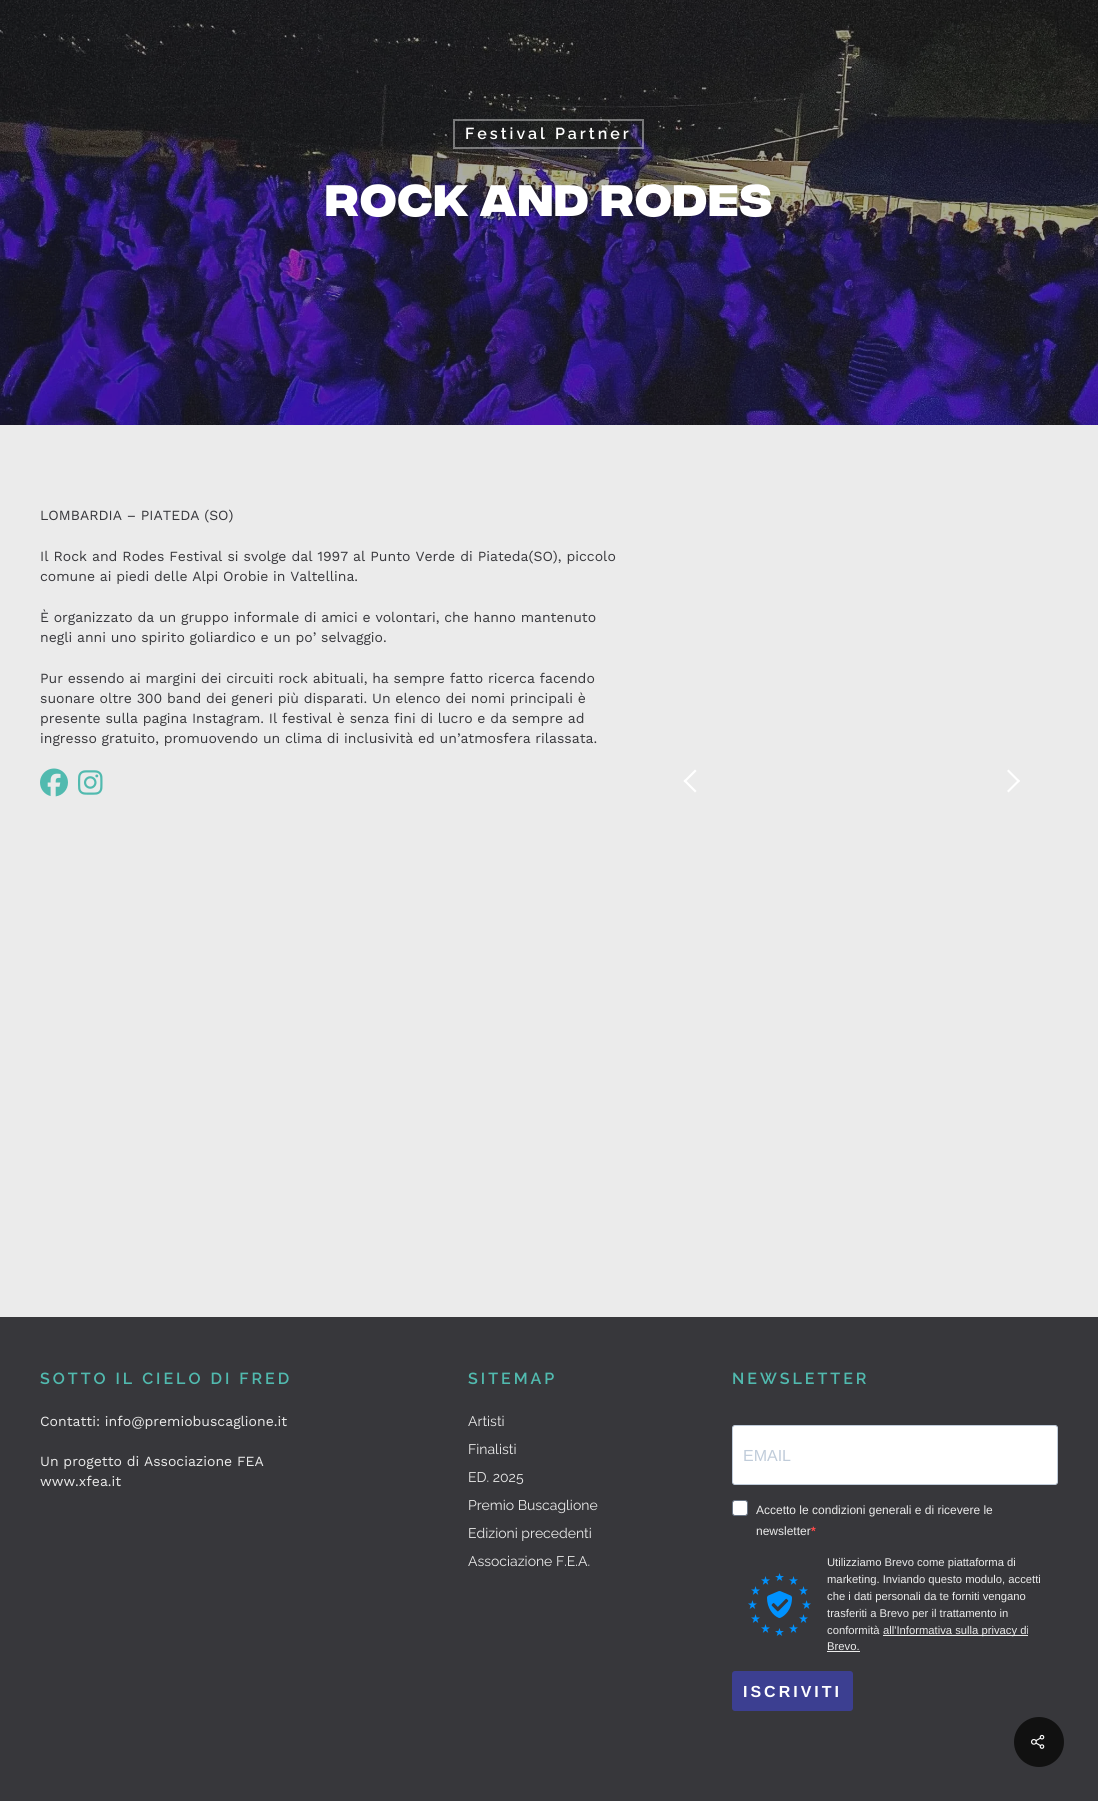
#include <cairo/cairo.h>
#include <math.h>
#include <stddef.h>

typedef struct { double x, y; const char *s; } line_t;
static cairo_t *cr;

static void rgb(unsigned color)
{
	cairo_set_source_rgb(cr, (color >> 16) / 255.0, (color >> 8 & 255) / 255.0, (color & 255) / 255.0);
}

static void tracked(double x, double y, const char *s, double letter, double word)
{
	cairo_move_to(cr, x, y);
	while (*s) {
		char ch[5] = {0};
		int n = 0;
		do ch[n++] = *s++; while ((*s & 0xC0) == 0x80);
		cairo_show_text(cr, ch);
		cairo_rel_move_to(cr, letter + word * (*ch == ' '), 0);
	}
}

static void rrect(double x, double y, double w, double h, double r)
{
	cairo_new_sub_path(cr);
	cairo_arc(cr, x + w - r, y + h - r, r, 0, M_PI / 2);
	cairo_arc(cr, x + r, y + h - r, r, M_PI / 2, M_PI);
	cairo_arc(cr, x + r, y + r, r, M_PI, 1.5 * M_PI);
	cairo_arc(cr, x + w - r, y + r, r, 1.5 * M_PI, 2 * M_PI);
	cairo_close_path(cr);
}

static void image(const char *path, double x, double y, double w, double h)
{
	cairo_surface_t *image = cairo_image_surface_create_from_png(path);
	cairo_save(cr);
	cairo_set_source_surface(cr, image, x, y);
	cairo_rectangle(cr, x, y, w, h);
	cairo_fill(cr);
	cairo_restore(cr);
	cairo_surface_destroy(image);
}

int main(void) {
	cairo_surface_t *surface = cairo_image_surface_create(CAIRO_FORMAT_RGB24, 1098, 1801);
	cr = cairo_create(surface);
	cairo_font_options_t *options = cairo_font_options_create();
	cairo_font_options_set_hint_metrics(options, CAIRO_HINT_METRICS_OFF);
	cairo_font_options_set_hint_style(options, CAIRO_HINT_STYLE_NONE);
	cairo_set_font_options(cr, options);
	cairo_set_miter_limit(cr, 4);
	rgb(0xebebeb);
	cairo_paint(cr);
	image("img/1.png", 0, 0, 1098, 425);
	cairo_rectangle(cr, 454, 120, 189, 28);
	cairo_set_source_rgba(cr, 1, 1, 1, 0.4);
	cairo_stroke(cr);
	image("img/2.png", 40, 768, 28, 29);
	image("img/3.png", 78, 770, 25, 25);
	rgb(0xffffff);
	cairo_new_path(cr);
	cairo_move_to(cr, 695, 792.5);
	cairo_line_to(cr, 683.5, 781);
	cairo_line_to(cr, 685, 779.5);
	cairo_line_to(cr, 696.5, 791);
	cairo_close_path(cr);
	cairo_fill(cr);
	cairo_new_path(cr);
	cairo_move_to(cr, 685, 782.5);
	cairo_line_to(cr, 683.5, 781);
	cairo_line_to(cr, 695, 769.5);
	cairo_line_to(cr, 696.5, 771);
	cairo_close_path(cr);
	cairo_fill(cr);
	cairo_new_path(cr);
	cairo_move_to(cr, 1008.5, 769.5);
	cairo_line_to(cr, 1020, 781);
	cairo_line_to(cr, 1018.5, 782.5);
	cairo_line_to(cr, 1007, 771);
	cairo_close_path(cr);
	cairo_fill(cr);
	cairo_new_path(cr);
	cairo_move_to(cr, 1018.5, 779.5);
	cairo_line_to(cr, 1020, 781);
	cairo_line_to(cr, 1008.5, 792.5);
	cairo_line_to(cr, 1007, 791);
	cairo_close_path(cr);
	cairo_fill(cr);
	rgb(0x37373b);
	cairo_rectangle(cr, 0, 1317, 1098, 484);
	cairo_fill(cr);
	rgb(0xffffff);
	rrect(732.5, 1425.5, 325, 59, 2.5);
	cairo_fill_preserve(cr);
	rgb(0xc0ccda);
	cairo_set_line_width(cr, 1);
	cairo_stroke(cr);
	rgb(0xffffff);
	rrect(732.5, 1500.5, 15, 15, 2.5);
	cairo_fill_preserve(cr);
	rgb(0x687484);
	cairo_stroke(cr);
	image("img/4.png", 748, 1573, 63, 63);
	rgb(0xebebeb);
	cairo_rectangle(cr, 883, 1635, 145, 1);
	cairo_fill(cr);
	cairo_rectangle(cr, 827, 1651, 33, 1);
	cairo_fill(cr);
	rgb(0x3c3f91);
	rrect(732, 1671, 121, 40, 3);
	cairo_fill(cr);
	rgb(0x111111);
	cairo_arc(cr, 1039, 1742, 25, 0, 2 * M_PI);
	cairo_fill(cr);
	image("img/5.png", 1031, 1734, 14, 15);
	cairo_select_font_face(cr, "Raleway SemiBold", CAIRO_FONT_SLANT_NORMAL, CAIRO_FONT_WEIGHT_NORMAL);
	cairo_set_font_size(cr, 16);
	rgb(0xffffff);
	tracked(465, 139, "Festival Partner", 3, 0);
	cairo_select_font_face(cr, "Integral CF", CAIRO_FONT_SLANT_NORMAL, CAIRO_FONT_WEIGHT_BOLD);
	cairo_set_font_size(cr, 44);
	tracked(325, 216, "Rock And Rodes", 1, 0);
	cairo_select_font_face(cr, "Work Sans", CAIRO_FONT_SLANT_NORMAL, CAIRO_FONT_WEIGHT_NORMAL);
	cairo_set_font_size(cr, 14);
	rgb(0x37373b);
	cairo_move_to(cr, 40, 520);
	cairo_show_text(cr, "LOMBARDIA – PIATEDA (SO)");
	tracked(40, 561, "Il Rock and Rodes Festival si svolge dal 1997 al Punto Verde di Piateda(SO), piccolo", 0, 0.25);
	{
		static const line_t items[] = {
			{40, 581, "comune ai piedi delle Alpi Orobie in Valtellina."},
			{40, 622, "È organizzato da un gruppo informale di amici e volontari, che hanno mantenuto"},
			{40, 642, "negli anni uno spirito goliardico e un po’ selvaggio."},
			{40, 683, "Pur essendo ai margini dei circuiti rock abituali, ha sempre fatto ricerca facendo"},
			{40, 703, "suonare oltre 300 band dei generi più disparati. Un elenco dei nomi principali è"},
			{40, 723, "presente sulla pagina Instagram. Il festival è senza fini di lucro e da sempre ad"},
			{40, 743, "ingresso gratuito, promuovendo un clima di inclusività ed un’atmosfera rilassata."},
		};
		for (size_t i = 0; i < sizeof items / sizeof *items; i++) {
			cairo_move_to(cr, items[i].x, items[i].y);
			cairo_show_text(cr, items[i].s);
		}
	}
	cairo_select_font_face(cr, "Raleway SemiBold", CAIRO_FONT_SLANT_NORMAL, CAIRO_FONT_WEIGHT_NORMAL);
	cairo_set_font_size(cr, 16);
	rgb(0x51baaf);
	tracked(40, 1384, "SOTTO IL CIELO DI FRED", 3, 0);
	cairo_select_font_face(cr, "Work Sans", CAIRO_FONT_SLANT_NORMAL, CAIRO_FONT_WEIGHT_NORMAL);
	cairo_set_font_size(cr, 14);
	rgb(0xebebeb);
	{
		static const line_t items[] = {
			{40, 1426, "Contatti: info@premiobuscaglione.it"},
			{40, 1466, "Un progetto di Associazione FEA"},
			{40, 1486, "www.xfea.it"},
		};
		for (size_t i = 0; i < sizeof items / sizeof *items; i++) {
			cairo_move_to(cr, items[i].x, items[i].y);
			cairo_show_text(cr, items[i].s);
		}
	}
	cairo_select_font_face(cr, "Raleway SemiBold", CAIRO_FONT_SLANT_NORMAL, CAIRO_FONT_WEIGHT_NORMAL);
	cairo_set_font_size(cr, 16);
	rgb(0x51baaf);
	tracked(468, 1384, "SITEMAP", 3, 0);
	cairo_select_font_face(cr, "Raleway", CAIRO_FONT_SLANT_NORMAL, CAIRO_FONT_WEIGHT_NORMAL);
	cairo_set_font_size(cr, 14);
	rgb(0xebebeb);
	{
		static const line_t items[] = {
			{468, 1426, "Artisti"},
			{468, 1454, "Finalisti"},
			{468, 1482, "ED. 2025"},
			{468, 1510, "Premio Buscaglione"},
			{468, 1538, "Edizioni precedenti"},
			{468, 1566, "Associazione F.E.A."},
		};
		for (size_t i = 0; i < sizeof items / sizeof *items; i++) {
			cairo_move_to(cr, items[i].x, items[i].y);
			cairo_show_text(cr, items[i].s);
		}
	}
	cairo_select_font_face(cr, "Raleway SemiBold", CAIRO_FONT_SLANT_NORMAL, CAIRO_FONT_WEIGHT_NORMAL);
	cairo_set_font_size(cr, 16);
	rgb(0x51baaf);
	tracked(732, 1384, "NEWSLETTER", 3, 0);
	cairo_select_font_face(cr, "Liberation Sans", CAIRO_FONT_SLANT_NORMAL, CAIRO_FONT_WEIGHT_NORMAL);
	rgb(0xc0ccda);
	cairo_move_to(cr, 743, 1461);
	cairo_show_text(cr, "EMAIL");
	cairo_set_font_size(cr, 12);
	rgb(0xebebeb);
	cairo_move_to(cr, 756, 1514);
	cairo_show_text(cr, "Accetto le condizioni generali e di ricevere le");
	cairo_move_to(cr, 756, 1535);
	cairo_show_text(cr, "newsletter");
	cairo_select_font_face(cr, "Liberation Sans", CAIRO_FONT_SLANT_NORMAL, CAIRO_FONT_WEIGHT_BOLD);
	rgb(0xff4949);
	cairo_move_to(cr, 811, 1535);
	cairo_show_text(cr, "*");
	cairo_select_font_face(cr, "Liberation Sans", CAIRO_FONT_SLANT_NORMAL, CAIRO_FONT_WEIGHT_NORMAL);
	cairo_set_font_size(cr, 11.25);
	rgb(0xebebeb);
	{
		static const line_t items[] = {
			{827, 1566, "Utilizziamo Brevo come piattaforma di"},
			{827, 1583, "marketing. Inviando questo modulo, accetti"},
			{827, 1600, "che i dati personali da te forniti vengano"},
			{827, 1617, "trasferiti a Brevo per il trattamento in"},
			{827, 1634, "conformità"},
			{883, 1634, "all'Informativa sulla privacy di"},
			{827, 1650, "Brevo."},
		};
		for (size_t i = 0; i < sizeof items / sizeof *items; i++) {
			cairo_move_to(cr, items[i].x, items[i].y);
			cairo_show_text(cr, items[i].s);
		}
	}
	cairo_select_font_face(cr, "Liberation Sans", CAIRO_FONT_SLANT_NORMAL, CAIRO_FONT_WEIGHT_BOLD);
	cairo_set_font_size(cr, 16);
	rgb(0xffffff);
	tracked(743, 1697, "ISCRIVITI", 3, 0);
	cairo_surface_write_to_png(surface, "page.png");
	cairo_font_options_destroy(options);
	cairo_destroy(cr);
	cairo_surface_destroy(surface);
	return 0;
}
